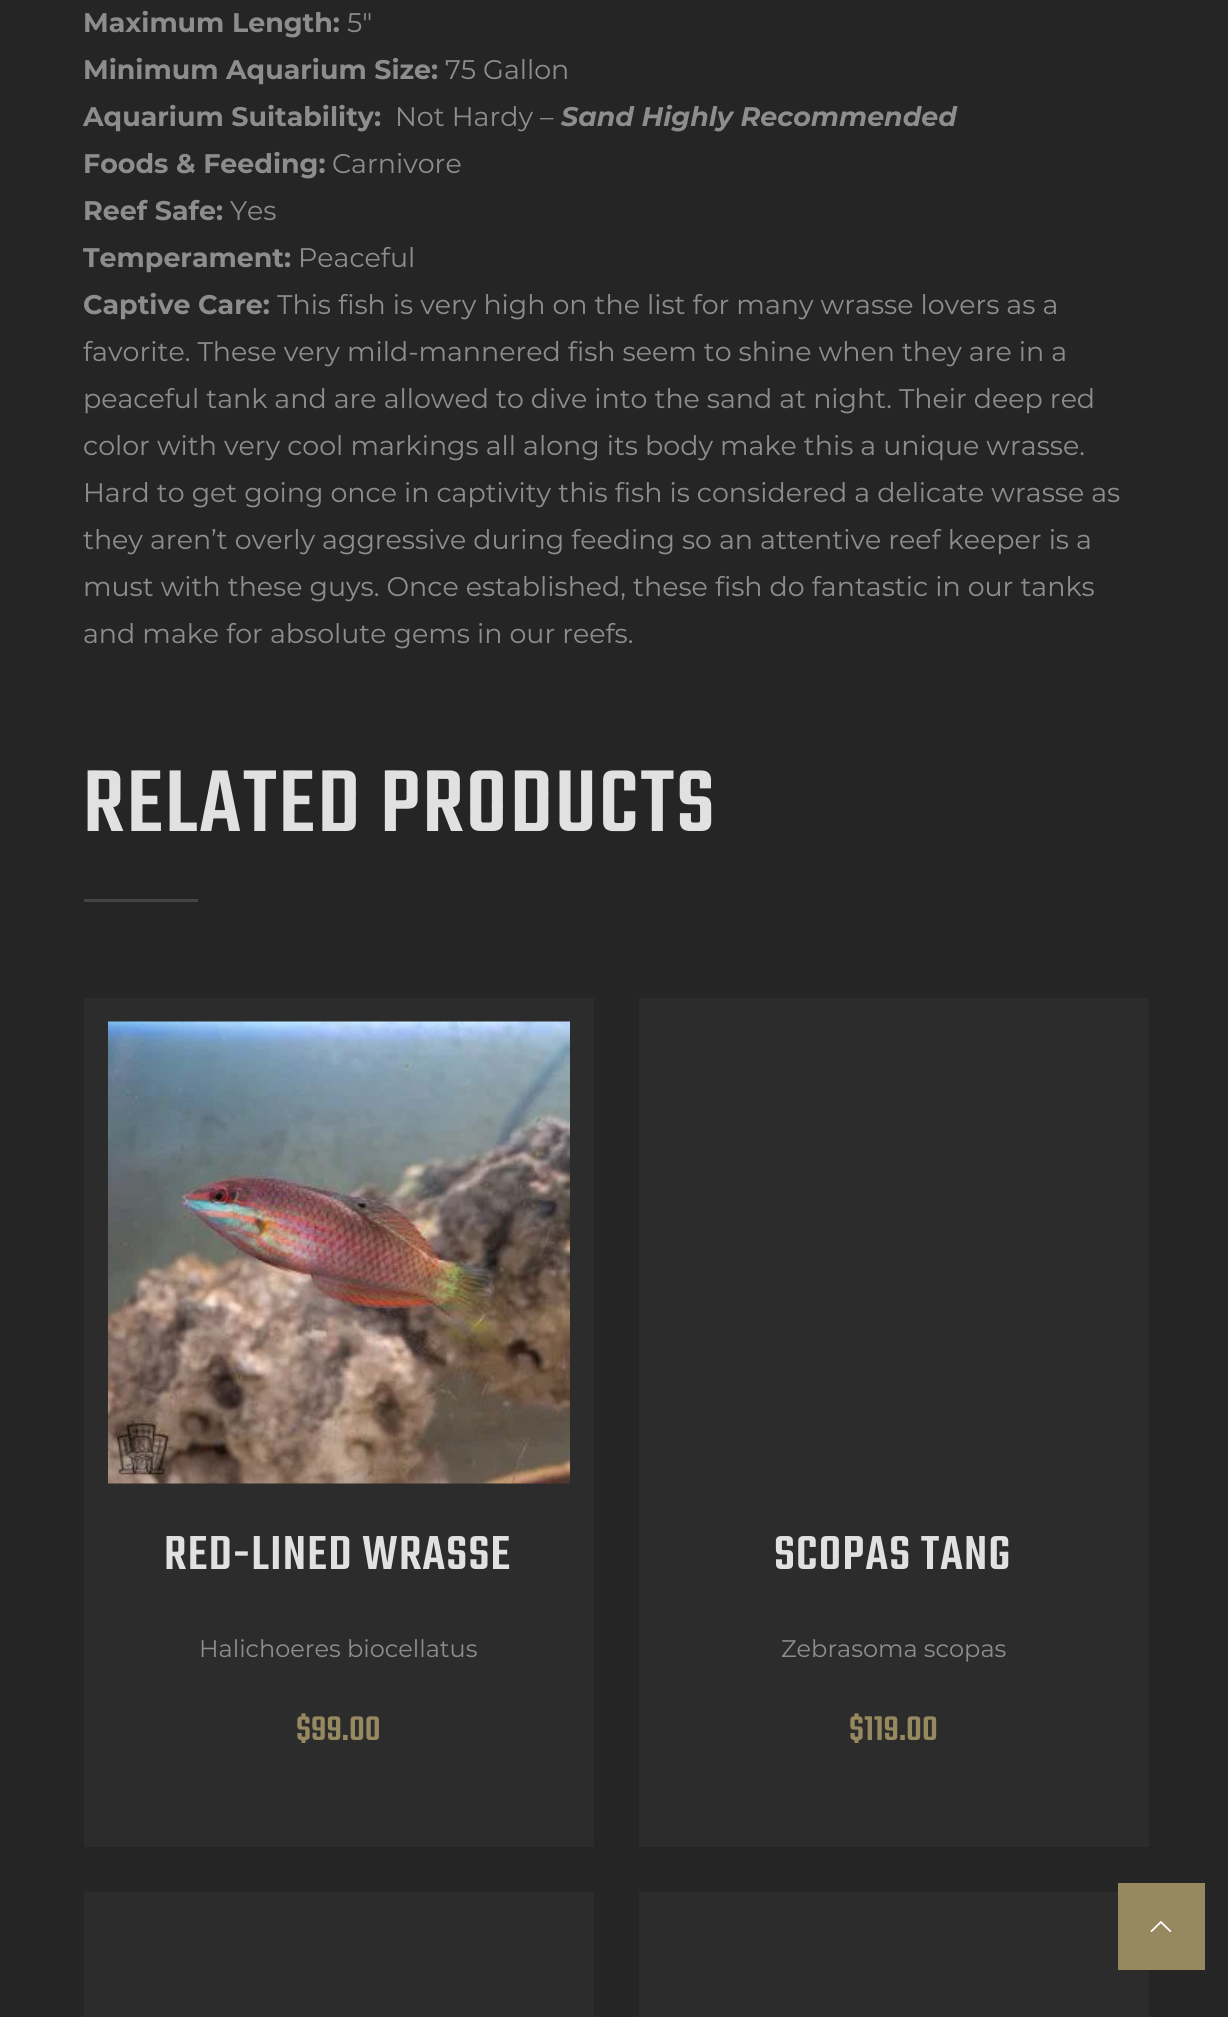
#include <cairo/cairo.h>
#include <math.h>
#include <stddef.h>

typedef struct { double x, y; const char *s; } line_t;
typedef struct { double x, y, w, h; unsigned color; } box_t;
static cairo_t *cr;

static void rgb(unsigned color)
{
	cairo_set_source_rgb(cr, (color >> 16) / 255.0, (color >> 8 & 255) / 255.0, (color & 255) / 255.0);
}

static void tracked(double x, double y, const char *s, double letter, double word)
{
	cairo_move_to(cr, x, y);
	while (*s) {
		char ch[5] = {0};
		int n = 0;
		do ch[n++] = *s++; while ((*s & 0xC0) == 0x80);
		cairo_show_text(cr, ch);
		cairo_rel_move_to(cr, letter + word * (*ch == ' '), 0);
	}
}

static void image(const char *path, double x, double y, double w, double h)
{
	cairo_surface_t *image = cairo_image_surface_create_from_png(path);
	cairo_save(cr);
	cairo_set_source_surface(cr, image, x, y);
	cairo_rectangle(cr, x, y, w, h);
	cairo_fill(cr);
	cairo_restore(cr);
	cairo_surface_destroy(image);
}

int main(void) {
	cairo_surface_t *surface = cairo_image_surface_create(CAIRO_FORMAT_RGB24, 1228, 2017);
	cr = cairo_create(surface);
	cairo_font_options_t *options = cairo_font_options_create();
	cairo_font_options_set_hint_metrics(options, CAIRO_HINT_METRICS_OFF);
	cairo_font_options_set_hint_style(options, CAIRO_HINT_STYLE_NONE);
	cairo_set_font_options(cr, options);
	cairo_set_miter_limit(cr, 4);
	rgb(0x252525);
	cairo_paint(cr);
	rgb(0x454545);
	cairo_rectangle(cr, 84, 899, 114, 3);
	cairo_fill(cr);
	rgb(0x2c2c2c);
	cairo_rectangle(cr, 84, 998, 510, 849);
	cairo_fill(cr);
	image("img/1.png", 108, 1021, 462, 463);
	{
		static const box_t items[] = {
			{639, 998, 510, 849, 0x2c2c2c},
			{84, 1892, 510, 125, 0x2c2c2c},
			{639, 1892, 510, 125, 0x2c2c2c},
			{1118, 1883, 87, 87, 0x96885f},
		};
		for (size_t i = 0; i < sizeof items / sizeof *items; i++) {
			rgb(items[i].color);
			cairo_rectangle(cr, items[i].x, items[i].y, items[i].w, items[i].h);
			cairo_fill(cr);
		}
	}
	image("img/2.png", 1150, 1921, 22, 12);
	cairo_select_font_face(cr, "Montserrat", CAIRO_FONT_SLANT_NORMAL, CAIRO_FONT_WEIGHT_BOLD);
	cairo_set_font_size(cr, 26.9);
	rgb(0x8d8d8d);
	cairo_move_to(cr, 83, 32);
	cairo_show_text(cr, "Maximum Length:");
	cairo_select_font_face(cr, "Montserrat", CAIRO_FONT_SLANT_NORMAL, CAIRO_FONT_WEIGHT_NORMAL);
	cairo_move_to(cr, 347, 32);
	cairo_show_text(cr, "5″");
	cairo_select_font_face(cr, "Montserrat", CAIRO_FONT_SLANT_NORMAL, CAIRO_FONT_WEIGHT_BOLD);
	cairo_move_to(cr, 83, 79);
	cairo_show_text(cr, "Minimum Aquarium Size:");
	cairo_select_font_face(cr, "Montserrat", CAIRO_FONT_SLANT_NORMAL, CAIRO_FONT_WEIGHT_NORMAL);
	cairo_move_to(cr, 445, 79);
	cairo_show_text(cr, "75 Gallon");
	cairo_select_font_face(cr, "Montserrat", CAIRO_FONT_SLANT_NORMAL, CAIRO_FONT_WEIGHT_BOLD);
	cairo_move_to(cr, 83, 126);
	cairo_show_text(cr, "Aquarium Suitability:");
	cairo_select_font_face(cr, "Montserrat", CAIRO_FONT_SLANT_NORMAL, CAIRO_FONT_WEIGHT_NORMAL);
	cairo_move_to(cr, 395, 126);
	cairo_show_text(cr, "Not Hardy –");
	cairo_select_font_face(cr, "Montserrat", CAIRO_FONT_SLANT_ITALIC, CAIRO_FONT_WEIGHT_BOLD);
	cairo_move_to(cr, 561, 126);
	cairo_show_text(cr, "Sand Highly Recommended");
	cairo_select_font_face(cr, "Montserrat", CAIRO_FONT_SLANT_NORMAL, CAIRO_FONT_WEIGHT_BOLD);
	cairo_move_to(cr, 83, 173);
	cairo_show_text(cr, "Foods & Feeding:");
	cairo_select_font_face(cr, "Montserrat", CAIRO_FONT_SLANT_NORMAL, CAIRO_FONT_WEIGHT_NORMAL);
	cairo_move_to(cr, 332, 173);
	cairo_show_text(cr, "Carnivore");
	cairo_select_font_face(cr, "Montserrat", CAIRO_FONT_SLANT_NORMAL, CAIRO_FONT_WEIGHT_BOLD);
	cairo_move_to(cr, 83, 220);
	cairo_show_text(cr, "Reef Safe:");
	cairo_select_font_face(cr, "Montserrat", CAIRO_FONT_SLANT_NORMAL, CAIRO_FONT_WEIGHT_NORMAL);
	cairo_move_to(cr, 230, 220);
	cairo_show_text(cr, "Yes");
	cairo_select_font_face(cr, "Montserrat", CAIRO_FONT_SLANT_NORMAL, CAIRO_FONT_WEIGHT_BOLD);
	cairo_move_to(cr, 83, 267);
	cairo_show_text(cr, "Temperament:");
	cairo_select_font_face(cr, "Montserrat", CAIRO_FONT_SLANT_NORMAL, CAIRO_FONT_WEIGHT_NORMAL);
	cairo_move_to(cr, 298, 267);
	cairo_show_text(cr, "Peaceful");
	cairo_select_font_face(cr, "Montserrat", CAIRO_FONT_SLANT_NORMAL, CAIRO_FONT_WEIGHT_BOLD);
	cairo_move_to(cr, 83, 314);
	cairo_show_text(cr, "Captive Care:");
	cairo_select_font_face(cr, "Montserrat", CAIRO_FONT_SLANT_NORMAL, CAIRO_FONT_WEIGHT_NORMAL);
	{
		static const line_t items[] = {
			{277, 314, "This fish is very high on the list for many wrasse lovers as a"},
			{83, 361, "favorite. These very mild-mannered fish seem to shine when they are in a"},
			{83, 408, "peaceful tank and are allowed to dive into the sand at night. Their deep red"},
			{83, 455, "color with very cool markings all along its body make this a unique wrasse."},
			{83, 502, "Hard to get going once in captivity this fish is considered a delicate wrasse as"},
			{83, 549, "they aren’t overly aggressive during feeding so an attentive reef keeper is a"},
			{83, 596, "must with these guys. Once established, these fish do fantastic in our tanks"},
			{83, 643, "and make for absolute gems in our reefs."},
		};
		for (size_t i = 0; i < sizeof items / sizeof *items; i++) {
			cairo_move_to(cr, items[i].x, items[i].y);
			cairo_show_text(cr, items[i].s);
		}
	}
	cairo_select_font_face(cr, "Teko Medium", CAIRO_FONT_SLANT_NORMAL, CAIRO_FONT_WEIGHT_NORMAL);
	cairo_set_font_size(cr, 96);
	rgb(0xe1e1e1);
	tracked(83, 831, "RELATED PRODUCTS", 2.4, 0);
	cairo_set_font_size(cr, 52.25);
	tracked(164, 1569, "RED-LINED WRASSE", 1.25, 0);
	cairo_select_font_face(cr, "Montserrat", CAIRO_FONT_SLANT_NORMAL, CAIRO_FONT_WEIGHT_NORMAL);
	cairo_set_font_size(cr, 24);
	rgb(0x8d8d8d);
	cairo_move_to(cr, 199, 1657);
	cairo_show_text(cr, "Halichoeres biocellatus");
	cairo_select_font_face(cr, "Teko Medium", CAIRO_FONT_SLANT_NORMAL, CAIRO_FONT_WEIGHT_NORMAL);
	cairo_set_font_size(cr, 37.5);
	rgb(0x96885f);
	cairo_move_to(cr, 296, 1740);
	cairo_show_text(cr, "$99.00");
	cairo_set_font_size(cr, 52.25);
	rgb(0xe1e1e1);
	tracked(774, 1569, "SCOPAS TANG", 1.25, 0);
	cairo_select_font_face(cr, "Montserrat", CAIRO_FONT_SLANT_NORMAL, CAIRO_FONT_WEIGHT_NORMAL);
	cairo_set_font_size(cr, 24);
	rgb(0x8d8d8d);
	cairo_move_to(cr, 781, 1657);
	cairo_show_text(cr, "Zebrasoma scopas");
	cairo_select_font_face(cr, "Teko Medium", CAIRO_FONT_SLANT_NORMAL, CAIRO_FONT_WEIGHT_NORMAL);
	cairo_set_font_size(cr, 37.5);
	rgb(0x96885f);
	cairo_move_to(cr, 849, 1740);
	cairo_show_text(cr, "$119.00");
	cairo_surface_write_to_png(surface, "page.png");
	cairo_font_options_destroy(options);
	cairo_destroy(cr);
	cairo_surface_destroy(surface);
	return 0;
}
